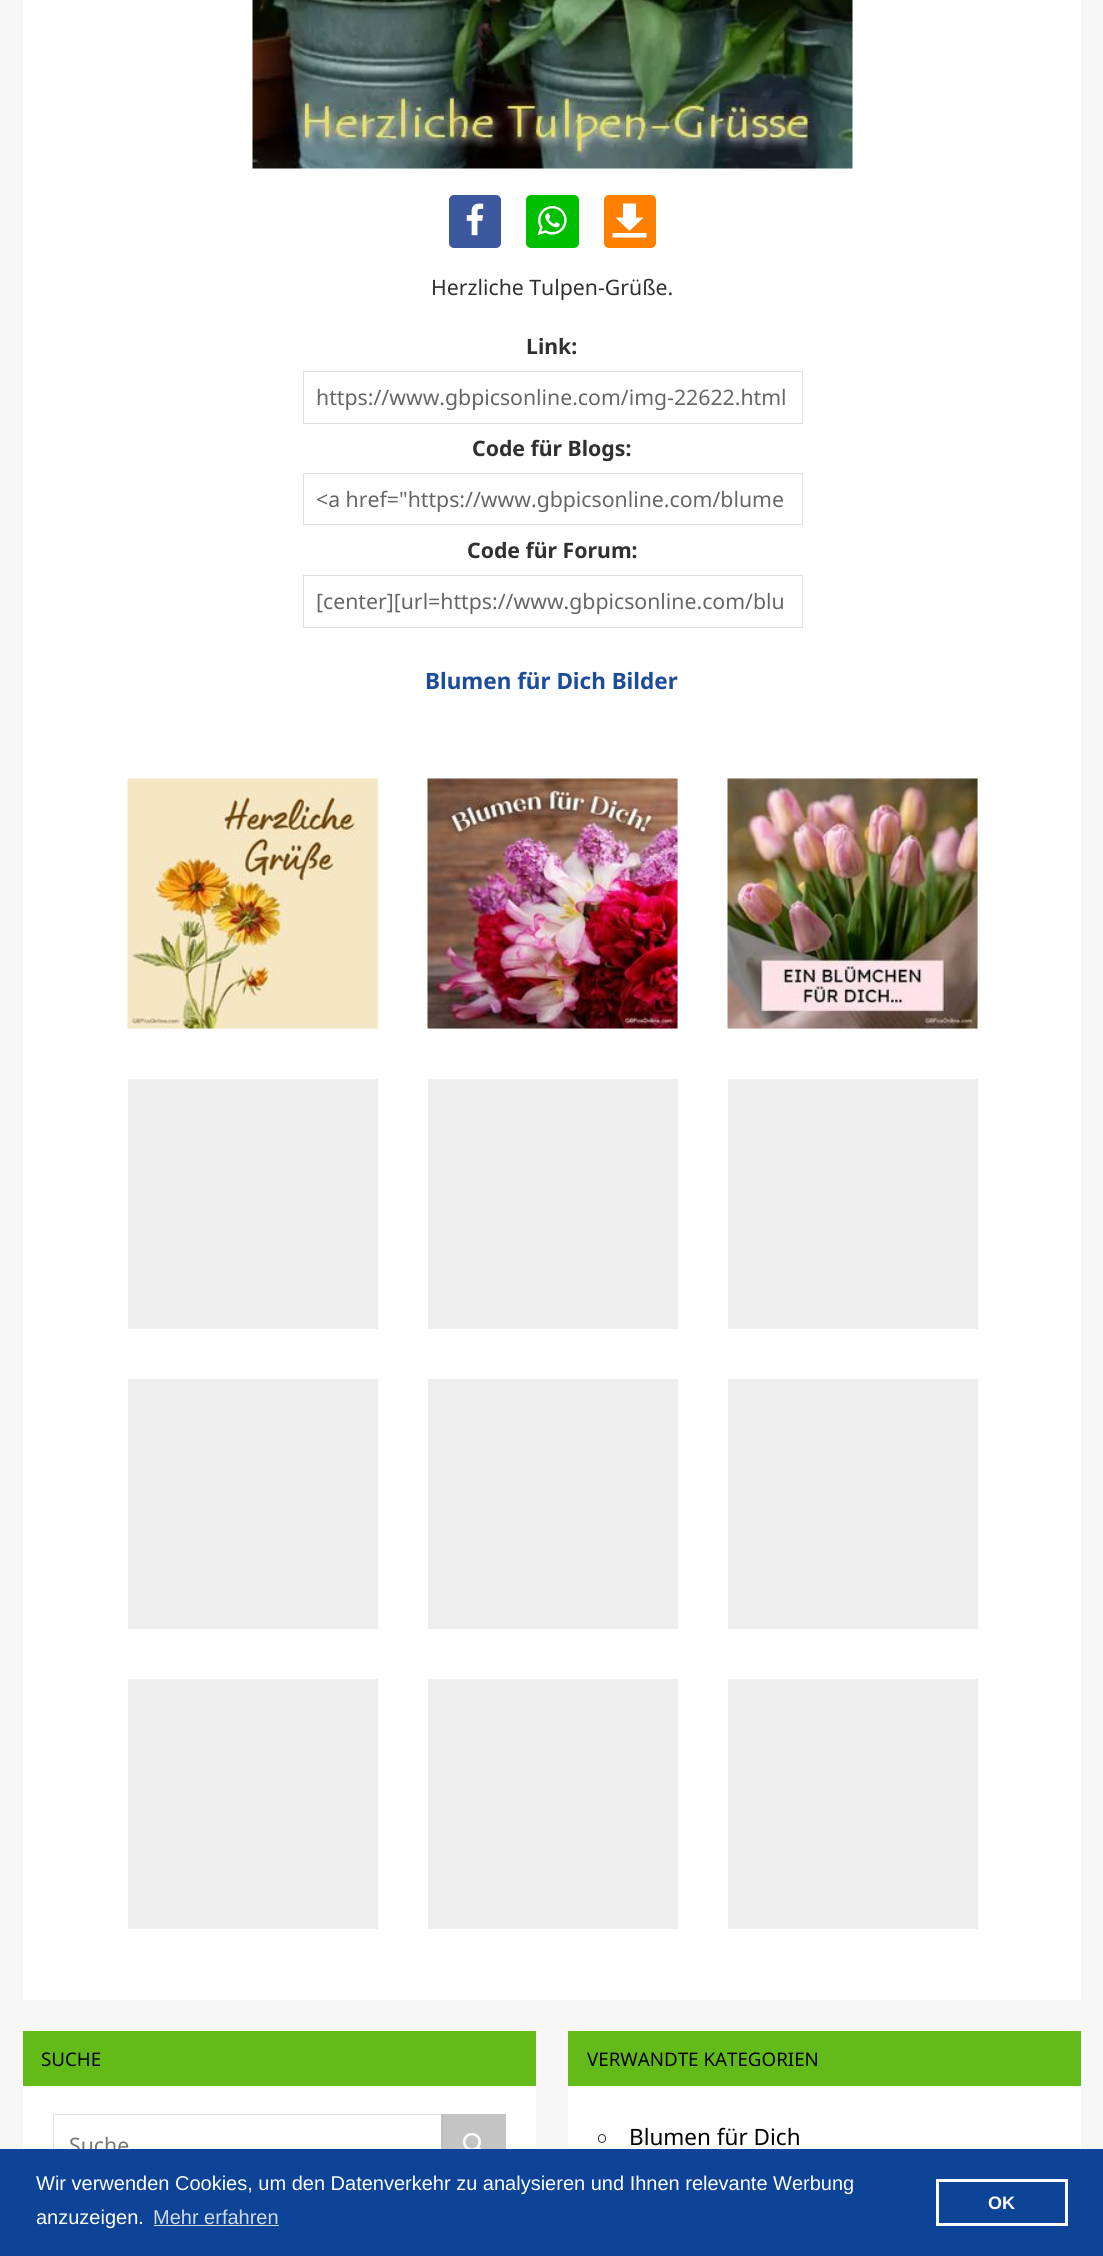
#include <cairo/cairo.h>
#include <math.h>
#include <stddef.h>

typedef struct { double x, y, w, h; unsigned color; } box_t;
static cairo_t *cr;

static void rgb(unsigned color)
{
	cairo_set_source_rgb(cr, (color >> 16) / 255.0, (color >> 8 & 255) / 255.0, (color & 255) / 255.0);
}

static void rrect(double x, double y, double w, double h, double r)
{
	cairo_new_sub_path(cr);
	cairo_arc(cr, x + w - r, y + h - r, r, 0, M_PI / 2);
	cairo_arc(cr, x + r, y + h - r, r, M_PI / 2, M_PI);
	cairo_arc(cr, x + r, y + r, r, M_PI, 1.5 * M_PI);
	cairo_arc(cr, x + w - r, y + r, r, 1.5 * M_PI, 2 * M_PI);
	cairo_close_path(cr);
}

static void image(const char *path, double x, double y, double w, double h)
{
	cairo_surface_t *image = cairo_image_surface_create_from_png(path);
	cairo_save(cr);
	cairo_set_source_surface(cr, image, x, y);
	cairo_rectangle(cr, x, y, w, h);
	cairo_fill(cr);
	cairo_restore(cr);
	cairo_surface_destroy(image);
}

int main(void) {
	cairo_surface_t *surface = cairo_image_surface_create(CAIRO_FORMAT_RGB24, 1103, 2256);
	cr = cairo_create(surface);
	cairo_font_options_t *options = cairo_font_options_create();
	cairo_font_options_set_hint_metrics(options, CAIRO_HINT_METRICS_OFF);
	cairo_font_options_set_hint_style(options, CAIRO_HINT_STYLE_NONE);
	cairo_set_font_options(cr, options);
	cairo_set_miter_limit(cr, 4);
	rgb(0xf7f7f7);
	cairo_paint(cr);
	rgb(0xffffff);
	cairo_rectangle(cr, 23, 0, 1058, 2000);
	cairo_fill(cr);
	image("img/1.png", 252, 0, 601, 169);
	rgb(0x3c599f);
	rrect(449, 195, 52, 53, 5);
	cairo_fill(cr);
	image("img/2.png", 466, 203, 18, 33);
	rgb(0x00be00);
	rrect(526, 195, 53, 53, 5);
	cairo_fill(cr);
	image("img/3.png", 537, 205, 30, 31);
	rgb(0xff8000);
	rrect(604, 195, 52, 53, 5);
	cairo_fill(cr);
	rgb(0xffffff);
	cairo_new_path(cr);
	cairo_move_to(cr, 612.5, 237.5);
	cairo_line_to(cr, 612.5, 233);
	cairo_line_to(cr, 646.5, 233);
	cairo_line_to(cr, 646.5, 237.5);
	cairo_close_path(cr);
	cairo_move_to(cr, 615.5, 217.5);
	cairo_line_to(cr, 623, 217.5);
	cairo_line_to(cr, 623, 203.5);
	cairo_line_to(cr, 636, 203.5);
	cairo_line_to(cr, 636, 217.5);
	cairo_line_to(cr, 643.5, 217.5);
	cairo_line_to(cr, 629.5, 231);
	cairo_close_path(cr);
	cairo_fill(cr);
	cairo_rectangle(cr, 303.5, 371.5, 499, 52);
	rgb(0xe0e0e0);
	cairo_set_line_width(cr, 1);
	cairo_stroke(cr);
	cairo_rectangle(cr, 303.5, 473.5, 499, 51);
	cairo_stroke(cr);
	cairo_rectangle(cr, 303.5, 575.5, 499, 52);
	cairo_stroke(cr);
	rgb(0xeeeeee);
	cairo_rectangle(cr, 128, 779, 250, 250);
	cairo_fill(cr);
	image("img/4.png", 127, 778, 251, 251);
	cairo_rectangle(cr, 428, 779, 250, 250);
	cairo_fill(cr);
	image("img/5.png", 427, 778, 251, 251);
	cairo_rectangle(cr, 728, 779, 250, 250);
	cairo_fill(cr);
	image("img/6.png", 727, 778, 251, 251);
	{
		static const box_t items[] = {
			{128, 1079, 250, 250, 0xeeeeee},
			{428, 1079, 250, 250, 0xeeeeee},
			{728, 1079, 250, 250, 0xeeeeee},
			{128, 1379, 250, 250, 0xeeeeee},
			{428, 1379, 250, 250, 0xeeeeee},
			{728, 1379, 250, 250, 0xeeeeee},
			{128, 1679, 250, 250, 0xeeeeee},
			{428, 1679, 250, 250, 0xeeeeee},
			{728, 1679, 250, 250, 0xeeeeee},
			{23, 2086, 513, 63, 0xffffff},
			{23, 2031, 513, 55, 0x62bb18},
		};
		for (size_t i = 0; i < sizeof items / sizeof *items; i++) {
			rgb(items[i].color);
			cairo_rectangle(cr, items[i].x, items[i].y, items[i].w, items[i].h);
			cairo_fill(cr);
		}
	}
	cairo_rectangle(cr, 53.5, 2114.5, 389, 60);
	rgb(0xe0e0e0);
	cairo_stroke(cr);
	cairo_set_source_rgba(cr, 0.675, 0.675, 0.675, 0.7);
	cairo_rectangle(cr, 441, 2114, 65, 35);
	cairo_fill(cr);
	image("img/7.png", 463, 2133, 19, 16);
	rgb(0xffffff);
	cairo_rectangle(cr, 568, 2086, 513, 63);
	cairo_fill(cr);
	rgb(0x62bb18);
	cairo_rectangle(cr, 568, 2031, 513, 55);
	cairo_fill(cr);
	rrect(598.5, 2134.5, 7, 8, 3.5);
	rgb(0x303030);
	cairo_stroke(cr);
	cairo_select_font_face(cr, "Noto Sans", CAIRO_FONT_SLANT_NORMAL, CAIRO_FONT_WEIGHT_NORMAL);
	cairo_set_font_size(cr, 21.25);
	cairo_move_to(cr, 431, 295);
	cairo_show_text(cr, "Herzliche Tulpen-Grüße.");
	cairo_select_font_face(cr, "Noto Sans", CAIRO_FONT_SLANT_NORMAL, CAIRO_FONT_WEIGHT_BOLD);
	cairo_move_to(cr, 526, 354);
	cairo_show_text(cr, "Link:");
	cairo_select_font_face(cr, "Noto Sans", CAIRO_FONT_SLANT_NORMAL, CAIRO_FONT_WEIGHT_NORMAL);
	rgb(0x666666);
	cairo_move_to(cr, 316, 405);
	cairo_show_text(cr, "https://www.gbpicsonline.com/img-22622.html");
	cairo_select_font_face(cr, "Noto Sans", CAIRO_FONT_SLANT_NORMAL, CAIRO_FONT_WEIGHT_BOLD);
	rgb(0x303030);
	cairo_move_to(cr, 472, 456);
	cairo_show_text(cr, "Code für Blogs:");
	cairo_select_font_face(cr, "Noto Sans", CAIRO_FONT_SLANT_NORMAL, CAIRO_FONT_WEIGHT_NORMAL);
	rgb(0x666666);
	cairo_move_to(cr, 316, 507);
	cairo_show_text(cr, "<a href=\"https://www.gbpicsonline.com/blume");
	cairo_select_font_face(cr, "Noto Sans", CAIRO_FONT_SLANT_NORMAL, CAIRO_FONT_WEIGHT_BOLD);
	rgb(0x303030);
	cairo_move_to(cr, 467, 558);
	cairo_show_text(cr, "Code für Forum:");
	cairo_select_font_face(cr, "Noto Sans", CAIRO_FONT_SLANT_NORMAL, CAIRO_FONT_WEIGHT_NORMAL);
	rgb(0x666666);
	cairo_move_to(cr, 316, 609);
	cairo_show_text(cr, "[center][url=https://www.gbpicsonline.com/blu");
	cairo_select_font_face(cr, "Noto Sans", CAIRO_FONT_SLANT_NORMAL, CAIRO_FONT_WEIGHT_BOLD);
	cairo_set_font_size(cr, 22.5);
	rgb(0x1c4c9a);
	cairo_move_to(cr, 425, 689);
	cairo_show_text(cr, "Blumen für Dich Bilder");
	cairo_select_font_face(cr, "Noto Sans", CAIRO_FONT_SLANT_NORMAL, CAIRO_FONT_WEIGHT_NORMAL);
	cairo_set_font_size(cr, 18.75);
	rgb(0x000000);
	cairo_move_to(cr, 41, 2066);
	cairo_show_text(cr, "SUCHE");
	cairo_set_font_size(cr, 21.25);
	rgb(0x757575);
	cairo_move_to(cr, 69, 2153);
	cairo_show_text(cr, "Suche");
	cairo_set_font_size(cr, 18.75);
	rgb(0x000000);
	cairo_move_to(cr, 587, 2066);
	cairo_show_text(cr, "VERWANDTE KATEGORIEN");
	cairo_set_font_size(cr, 22.5);
	cairo_move_to(cr, 629, 2145);
	cairo_show_text(cr, "Blumen für Dich");
	rgb(0x0d4497);
	cairo_rectangle(cr, 0, 2149, 1103, 107);
	cairo_fill(cr);
	cairo_select_font_face(cr, "Liberation Sans", CAIRO_FONT_SLANT_NORMAL, CAIRO_FONT_WEIGHT_NORMAL);
	cairo_set_font_size(cr, 20);
	rgb(0xffffff);
	cairo_move_to(cr, 36, 2190);
	cairo_show_text(cr, "Wir verwenden Cookies, um den Datenverkehr zu analysieren und Ihnen relevante Werbung");
	cairo_move_to(cr, 36, 2224);
	cairo_show_text(cr, "anzuzeigen.");
	rgb(0xcfdaea);
	cairo_move_to(cr, 153, 2224);
	cairo_show_text(cr, "Mehr erfahren");
	cairo_rectangle(cr, 154, 2225, 125, 1);
	cairo_fill(cr);
	cairo_rectangle(cr, 937.5, 2180.5, 129, 44);
	rgb(0xffffff);
	cairo_set_line_width(cr, 3);
	cairo_stroke(cr);
	cairo_select_font_face(cr, "Liberation Sans", CAIRO_FONT_SLANT_NORMAL, CAIRO_FONT_WEIGHT_BOLD);
	cairo_set_font_size(cr, 18);
	cairo_move_to(cr, 988, 2209);
	cairo_show_text(cr, "OK");
	cairo_surface_write_to_png(surface, "page.png");
	cairo_font_options_destroy(options);
	cairo_destroy(cr);
	cairo_surface_destroy(surface);
	return 0;
}
